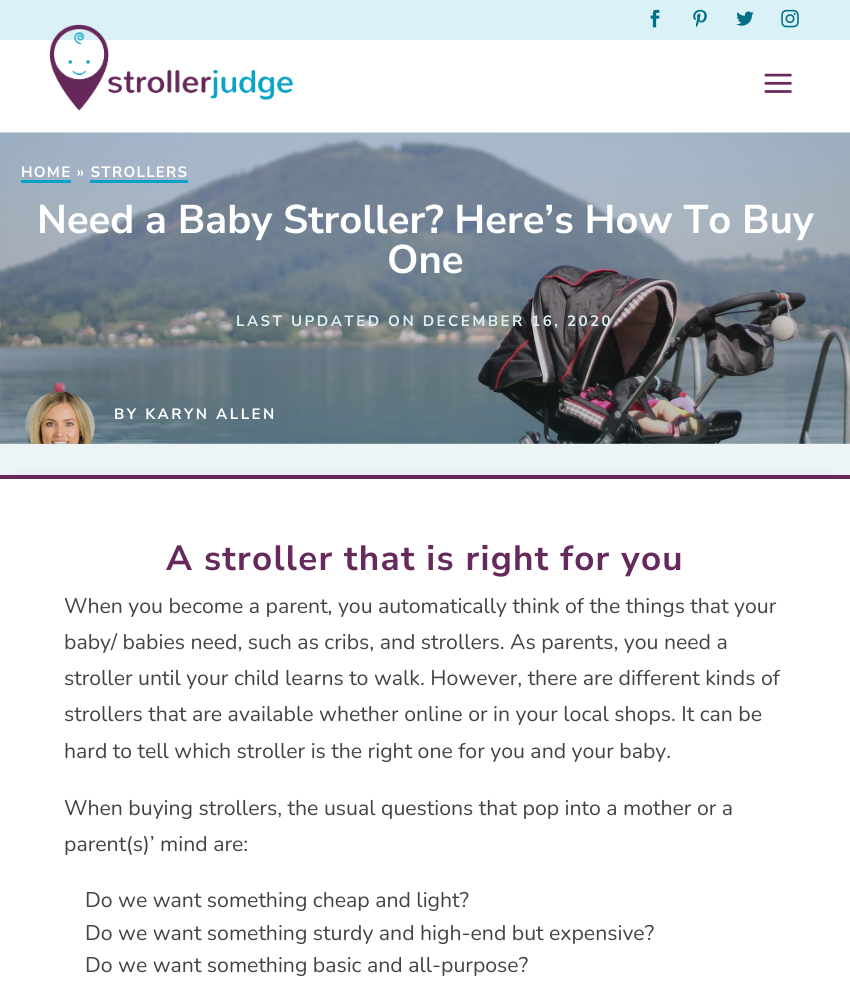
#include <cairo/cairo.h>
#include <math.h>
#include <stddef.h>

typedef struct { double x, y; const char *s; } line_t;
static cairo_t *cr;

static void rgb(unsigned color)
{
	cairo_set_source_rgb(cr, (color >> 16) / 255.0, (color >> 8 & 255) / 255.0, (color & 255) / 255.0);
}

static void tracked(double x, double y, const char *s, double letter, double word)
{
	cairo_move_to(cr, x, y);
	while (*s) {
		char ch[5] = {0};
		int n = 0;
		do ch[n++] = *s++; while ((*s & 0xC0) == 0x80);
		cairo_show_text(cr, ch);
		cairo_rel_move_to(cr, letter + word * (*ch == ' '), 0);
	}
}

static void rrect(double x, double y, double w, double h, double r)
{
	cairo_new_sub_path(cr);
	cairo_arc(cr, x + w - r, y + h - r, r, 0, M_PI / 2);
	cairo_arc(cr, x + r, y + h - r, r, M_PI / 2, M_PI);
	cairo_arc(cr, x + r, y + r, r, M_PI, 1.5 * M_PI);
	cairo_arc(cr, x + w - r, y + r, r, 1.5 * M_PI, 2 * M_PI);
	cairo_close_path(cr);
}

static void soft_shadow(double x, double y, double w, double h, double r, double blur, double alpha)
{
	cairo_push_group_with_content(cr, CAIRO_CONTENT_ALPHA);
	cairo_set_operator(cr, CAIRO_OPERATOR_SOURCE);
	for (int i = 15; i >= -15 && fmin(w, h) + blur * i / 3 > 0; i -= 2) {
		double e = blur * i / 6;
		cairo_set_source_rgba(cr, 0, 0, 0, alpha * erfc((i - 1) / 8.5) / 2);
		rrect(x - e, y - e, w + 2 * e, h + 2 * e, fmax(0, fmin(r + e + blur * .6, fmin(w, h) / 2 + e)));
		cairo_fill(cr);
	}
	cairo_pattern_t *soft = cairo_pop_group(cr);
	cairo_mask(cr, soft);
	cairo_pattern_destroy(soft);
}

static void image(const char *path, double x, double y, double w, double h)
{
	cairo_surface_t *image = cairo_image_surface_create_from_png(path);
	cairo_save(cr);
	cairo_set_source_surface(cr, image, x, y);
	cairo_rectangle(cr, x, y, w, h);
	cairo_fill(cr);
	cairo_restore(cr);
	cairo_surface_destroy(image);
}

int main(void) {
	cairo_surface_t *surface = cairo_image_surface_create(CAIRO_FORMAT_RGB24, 850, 998);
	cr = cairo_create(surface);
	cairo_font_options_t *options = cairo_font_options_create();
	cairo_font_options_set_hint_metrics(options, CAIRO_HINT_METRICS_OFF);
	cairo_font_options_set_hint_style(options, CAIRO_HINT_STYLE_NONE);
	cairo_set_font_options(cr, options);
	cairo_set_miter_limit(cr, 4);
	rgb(0xffffff);
	cairo_paint(cr);
	rgb(0xd9f1f7);
	cairo_rectangle(cr, 0, 0, 850, 40);
	cairo_fill(cr);
	image("img/1.png", 650, 9, 10, 19);
	image("img/2.png", 693, 9, 14, 19);
	image("img/3.png", 736, 11, 18, 15);
	image("img/4.png", 781, 9, 18, 19);
	image("img/5.png", 49, 24, 245, 87);
	image("img/6.png", 764, 73, 28, 20);
	image("img/7.png", 0, 132, 850, 312);
	rgb(0x05a3c6);
	cairo_rectangle(cr, 21, 180, 50, 3);
	cairo_fill(cr);
	cairo_rectangle(cr, 90, 180, 98, 3);
	cairo_fill(cr);
	image("img/8.png", 25, 391, 70, 53);
	cairo_save(cr);
	cairo_rectangle(cr, 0, 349, 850, 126);
	cairo_clip(cr);
	rgb(0x00687f);
	soft_shadow(-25, 453, 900, 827, 0, 94, 0.15);
	cairo_restore(cr);
	rgb(0x66295b);
	cairo_rectangle(cr, 0, 475, 850, 4);
	cairo_fill(cr);
	cairo_select_font_face(cr, "Nunito Sans", CAIRO_FONT_SLANT_NORMAL, CAIRO_FONT_WEIGHT_BOLD);
	cairo_set_font_size(cr, 15);
	rgb(0xffffff);
	tracked(21, 177, "HOME » STROLLERS", 1.25, 0);
	cairo_set_font_size(cr, 40);
	cairo_move_to(cr, 37, 233);
	cairo_show_text(cr, "Need a Baby Stroller? Here’s How To Buy");
	cairo_move_to(cr, 387, 273);
	cairo_show_text(cr, "One");
	cairo_set_font_size(cr, 15);
	rgb(0xd9f1f7);
	tracked(236, 326, "LAST UPDATED ON DECEMBER 16, 2020", 2.5, 0);
	rgb(0xffffff);
	tracked(114, 419, "BY KARYN ALLEN", 2.5, 0);
	cairo_set_font_size(cr, 35);
	rgb(0x66295b);
	tracked(166, 570, "A stroller that is right for you", 1.25, 0);
	cairo_select_font_face(cr, "Nunito", CAIRO_FONT_SLANT_NORMAL, CAIRO_FONT_WEIGHT_NORMAL);
	cairo_set_font_size(cr, 21.25);
	rgb(0x444444);
	{
		static const line_t items[] = {
			{64, 613, "When you become a parent, you automatically think of the things that your"},
			{64, 649, "baby/ babies need, such as cribs, and strollers. As parents, you need a"},
			{64, 685, "stroller until your child learns to walk. However, there are different kinds of"},
			{64, 721, "strollers that are available whether online or in your local shops. It can be"},
			{64, 758, "hard to tell which stroller is the right one for you and your baby."},
			{64, 815, "When buying strollers, the usual questions that pop into a mother or a"},
			{64, 851, "parent(s)’ mind are:"},
			{85, 907, "Do we want something cheap and light?"},
			{85, 940, "Do we want something sturdy and high-end but expensive?"},
			{85, 972, "Do we want something basic and all-purpose?"},
		};
		for (size_t i = 0; i < sizeof items / sizeof *items; i++) {
			cairo_move_to(cr, items[i].x, items[i].y);
			cairo_show_text(cr, items[i].s);
		}
	}
	cairo_surface_write_to_png(surface, "page.png");
	cairo_font_options_destroy(options);
	cairo_destroy(cr);
	cairo_surface_destroy(surface);
	return 0;
}
